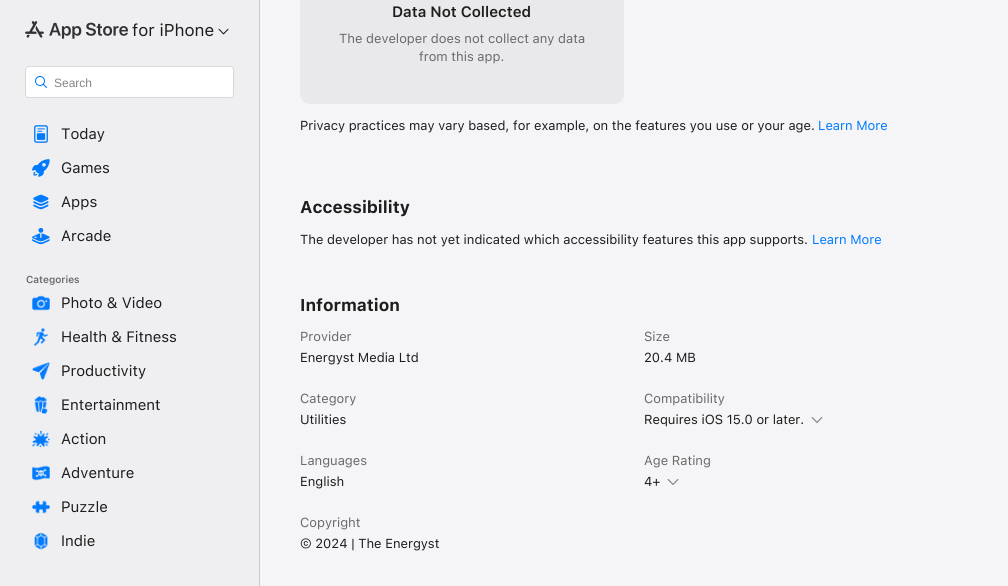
#include <cairo/cairo.h>
#include <math.h>
#include <stddef.h>

typedef struct { double x, y; const char *s; } line_t;
static cairo_t *cr;

static void rgb(unsigned color)
{
	cairo_set_source_rgb(cr, (color >> 16) / 255.0, (color >> 8 & 255) / 255.0, (color & 255) / 255.0);
}

static void rrect(double x, double y, double w, double h, double r)
{
	cairo_new_sub_path(cr);
	cairo_arc(cr, x + w - r, y + h - r, r, 0, M_PI / 2);
	cairo_arc(cr, x + r, y + h - r, r, M_PI / 2, M_PI);
	cairo_arc(cr, x + r, y + r, r, M_PI, 1.5 * M_PI);
	cairo_arc(cr, x + w - r, y + r, r, 1.5 * M_PI, 2 * M_PI);
	cairo_close_path(cr);
}

static void image(const char *path, double x, double y, double w, double h)
{
	cairo_surface_t *image = cairo_image_surface_create_from_png(path);
	cairo_save(cr);
	cairo_set_source_surface(cr, image, x, y);
	cairo_rectangle(cr, x, y, w, h);
	cairo_fill(cr);
	cairo_restore(cr);
	cairo_surface_destroy(image);
}

int main(void) {
	cairo_surface_t *surface = cairo_image_surface_create(CAIRO_FORMAT_RGB24, 1008, 586);
	cr = cairo_create(surface);
	cairo_font_options_t *options = cairo_font_options_create();
	cairo_font_options_set_hint_metrics(options, CAIRO_HINT_METRICS_OFF);
	cairo_font_options_set_hint_style(options, CAIRO_HINT_STYLE_NONE);
	cairo_set_font_options(cr, options);
	cairo_set_miter_limit(cr, 4);
	rgb(0xf5f5f7);
	cairo_paint(cr);
	rgb(0xefeff2);
	cairo_rectangle(cr, 0, 0, 259, 586);
	cairo_fill(cr);
	rgb(0xcbcbce);
	cairo_rectangle(cr, 259, 0, 1, 586);
	cairo_fill(cr);
	image("img/1.png", 25, 21, 103, 18);
	image("img/2.png", 218, 28, 11, 7);
	rgb(0xffffff);
	rrect(25, 66, 209, 32, 4);
	cairo_fill(cr);
	rrect(25.5, 66.5, 208, 31, 3.5);
	cairo_set_source_rgba(cr, 0, 0, 0, 0.15);
	cairo_set_line_width(cr, 1);
	cairo_stroke(cr);
	image("img/3.png", 35, 76, 12, 12);
	image("img/4.png", 34, 125, 14, 18);
	image("img/5.png", 32, 159, 18, 18);
	image("img/6.png", 33, 194, 16, 16);
	image("img/7.png", 32, 227, 18, 18);
	image("img/8.png", 32, 295, 18, 16);
	image("img/9.png", 33, 328, 16, 18);
	image("img/10.png", 32, 362, 18, 18);
	image("img/11.png", 34, 396, 14, 18);
	image("img/12.png", 32, 430, 18, 18);
	image("img/13.png", 32, 465, 18, 16);
	image("img/14.png", 32, 500, 18, 14);
	image("img/15.png", 34, 532, 14, 18);
	rgb(0xe9e9eb);
	rrect(300, -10, 324, 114, 10);
	cairo_fill(cr);
	image("img/16.png", 811, 417, 12, 6);
	image("img/16.png", 667, 479, 12, 6);
	cairo_select_font_face(cr, "SF", CAIRO_FONT_SLANT_NORMAL, CAIRO_FONT_WEIGHT_NORMAL);
	cairo_set_font_size(cr, 17);
	rgb(0x1d1d1d);
	cairo_move_to(cr, 132, 36);
	cairo_show_text(cr, "for iPhone");
	cairo_select_font_face(cr, "Liberation Sans", CAIRO_FONT_SLANT_NORMAL, CAIRO_FONT_WEIGHT_NORMAL);
	cairo_set_font_size(cr, 12);
	rgb(0x858585);
	cairo_move_to(cr, 54, 87);
	cairo_show_text(cr, "Search");
	cairo_select_font_face(cr, "SF", CAIRO_FONT_SLANT_NORMAL, CAIRO_FONT_WEIGHT_NORMAL);
	cairo_set_font_size(cr, 15);
	rgb(0x1d1d1d);
	{
		static const line_t items[] = {
			{61, 139, "Today"},
			{61, 173, "Games"},
			{61, 207, "Apps"},
			{61, 241, "Arcade"},
		};
		for (size_t i = 0; i < sizeof items / sizeof *items; i++) {
			cairo_move_to(cr, items[i].x, items[i].y);
			cairo_show_text(cr, items[i].s);
		}
	}
	cairo_select_font_face(cr, "SF SemiBold", CAIRO_FONT_SLANT_NORMAL, CAIRO_FONT_WEIGHT_NORMAL);
	cairo_set_font_size(cr, 10);
	rgb(0x69696a);
	cairo_move_to(cr, 26, 283);
	cairo_show_text(cr, "Categories");
	cairo_select_font_face(cr, "SF", CAIRO_FONT_SLANT_NORMAL, CAIRO_FONT_WEIGHT_NORMAL);
	cairo_set_font_size(cr, 15);
	rgb(0x1d1d1d);
	{
		static const line_t items[] = {
			{61, 308, "Photo & Video"},
			{61, 342, "Health & Fitness"},
			{61, 376, "Productivity"},
			{61, 410, "Entertainment"},
			{61, 444, "Action"},
			{61, 478, "Adventure"},
			{61, 512, "Puzzle"},
			{61, 546, "Indie"},
		};
		for (size_t i = 0; i < sizeof items / sizeof *items; i++) {
			cairo_move_to(cr, items[i].x, items[i].y);
			cairo_show_text(cr, items[i].s);
		}
	}
	cairo_select_font_face(cr, "SF SemiBold", CAIRO_FONT_SLANT_NORMAL, CAIRO_FONT_WEIGHT_NORMAL);
	cairo_move_to(cr, 392, 17);
	cairo_show_text(cr, "Data Not Collected");
	cairo_select_font_face(cr, "SF", CAIRO_FONT_SLANT_NORMAL, CAIRO_FONT_WEIGHT_NORMAL);
	cairo_set_font_size(cr, 13);
	rgb(0x69696a);
	cairo_move_to(cr, 339, 43);
	cairo_show_text(cr, "The developer does not collect any data");
	cairo_move_to(cr, 419, 61);
	cairo_show_text(cr, "from this app.");
	rgb(0x1d1d1d);
	cairo_move_to(cr, 300, 130);
	cairo_show_text(cr, "Privacy practices may vary based, for example, on the features you use or your age.");
	rgb(0x007aff);
	cairo_move_to(cr, 818, 130);
	cairo_show_text(cr, "Learn More");
	cairo_select_font_face(cr, "SF", CAIRO_FONT_SLANT_NORMAL, CAIRO_FONT_WEIGHT_BOLD);
	cairo_set_font_size(cr, 17);
	rgb(0x1d1d1d);
	cairo_move_to(cr, 300, 213);
	cairo_show_text(cr, "Accessibility");
	cairo_select_font_face(cr, "SF", CAIRO_FONT_SLANT_NORMAL, CAIRO_FONT_WEIGHT_NORMAL);
	cairo_set_font_size(cr, 13);
	cairo_move_to(cr, 300, 244);
	cairo_show_text(cr, "The developer has not yet indicated which accessibility features this app supports.");
	rgb(0x007aff);
	cairo_move_to(cr, 812, 244);
	cairo_show_text(cr, "Learn More");
	cairo_select_font_face(cr, "SF", CAIRO_FONT_SLANT_NORMAL, CAIRO_FONT_WEIGHT_BOLD);
	cairo_set_font_size(cr, 17);
	rgb(0x1d1d1d);
	cairo_move_to(cr, 300, 311);
	cairo_show_text(cr, "Information");
	cairo_select_font_face(cr, "SF", CAIRO_FONT_SLANT_NORMAL, CAIRO_FONT_WEIGHT_NORMAL);
	cairo_set_font_size(cr, 13);
	rgb(0x69696a);
	cairo_move_to(cr, 300, 341);
	cairo_show_text(cr, "Provider");
	rgb(0x1d1d1d);
	cairo_move_to(cr, 300, 362);
	cairo_show_text(cr, "Energyst Media Ltd");
	rgb(0x69696a);
	cairo_move_to(cr, 644, 341);
	cairo_show_text(cr, "Size");
	rgb(0x1d1d1d);
	cairo_move_to(cr, 644, 362);
	cairo_show_text(cr, "20.4 MB");
	rgb(0x69696a);
	cairo_move_to(cr, 300, 403);
	cairo_show_text(cr, "Category");
	rgb(0x1d1d1d);
	cairo_move_to(cr, 300, 424);
	cairo_show_text(cr, "Utilities");
	rgb(0x69696a);
	cairo_move_to(cr, 644, 403);
	cairo_show_text(cr, "Compatibility");
	rgb(0x1d1d1d);
	cairo_move_to(cr, 644, 424);
	cairo_show_text(cr, "Requires iOS 15.0 or later.");
	rgb(0x69696a);
	cairo_move_to(cr, 300, 465);
	cairo_show_text(cr, "Languages");
	rgb(0x1d1d1d);
	cairo_move_to(cr, 300, 486);
	cairo_show_text(cr, "English");
	rgb(0x69696a);
	cairo_move_to(cr, 644, 465);
	cairo_show_text(cr, "Age Rating");
	rgb(0x1d1d1d);
	cairo_move_to(cr, 644, 486);
	cairo_show_text(cr, "4+");
	rgb(0x69696a);
	cairo_move_to(cr, 300, 527);
	cairo_show_text(cr, "Copyright");
	rgb(0x1d1d1d);
	cairo_move_to(cr, 300, 548);
	cairo_show_text(cr, "© 2024 | The Energyst");
	cairo_surface_write_to_png(surface, "page.png");
	cairo_font_options_destroy(options);
	cairo_destroy(cr);
	cairo_surface_destroy(surface);
	return 0;
}
